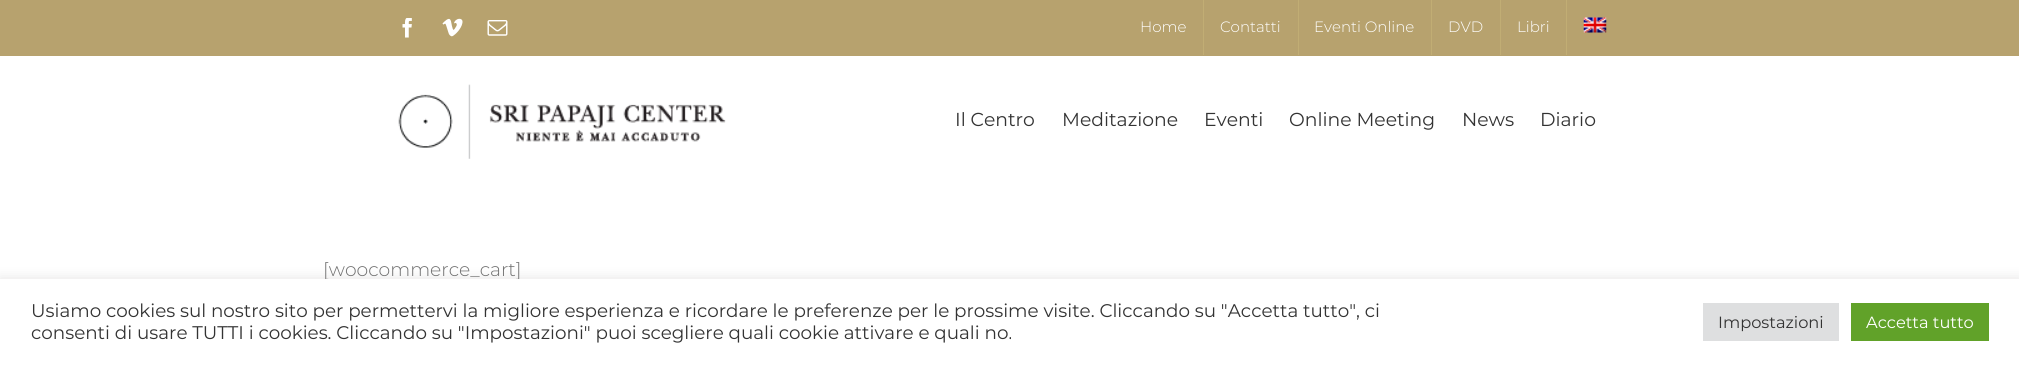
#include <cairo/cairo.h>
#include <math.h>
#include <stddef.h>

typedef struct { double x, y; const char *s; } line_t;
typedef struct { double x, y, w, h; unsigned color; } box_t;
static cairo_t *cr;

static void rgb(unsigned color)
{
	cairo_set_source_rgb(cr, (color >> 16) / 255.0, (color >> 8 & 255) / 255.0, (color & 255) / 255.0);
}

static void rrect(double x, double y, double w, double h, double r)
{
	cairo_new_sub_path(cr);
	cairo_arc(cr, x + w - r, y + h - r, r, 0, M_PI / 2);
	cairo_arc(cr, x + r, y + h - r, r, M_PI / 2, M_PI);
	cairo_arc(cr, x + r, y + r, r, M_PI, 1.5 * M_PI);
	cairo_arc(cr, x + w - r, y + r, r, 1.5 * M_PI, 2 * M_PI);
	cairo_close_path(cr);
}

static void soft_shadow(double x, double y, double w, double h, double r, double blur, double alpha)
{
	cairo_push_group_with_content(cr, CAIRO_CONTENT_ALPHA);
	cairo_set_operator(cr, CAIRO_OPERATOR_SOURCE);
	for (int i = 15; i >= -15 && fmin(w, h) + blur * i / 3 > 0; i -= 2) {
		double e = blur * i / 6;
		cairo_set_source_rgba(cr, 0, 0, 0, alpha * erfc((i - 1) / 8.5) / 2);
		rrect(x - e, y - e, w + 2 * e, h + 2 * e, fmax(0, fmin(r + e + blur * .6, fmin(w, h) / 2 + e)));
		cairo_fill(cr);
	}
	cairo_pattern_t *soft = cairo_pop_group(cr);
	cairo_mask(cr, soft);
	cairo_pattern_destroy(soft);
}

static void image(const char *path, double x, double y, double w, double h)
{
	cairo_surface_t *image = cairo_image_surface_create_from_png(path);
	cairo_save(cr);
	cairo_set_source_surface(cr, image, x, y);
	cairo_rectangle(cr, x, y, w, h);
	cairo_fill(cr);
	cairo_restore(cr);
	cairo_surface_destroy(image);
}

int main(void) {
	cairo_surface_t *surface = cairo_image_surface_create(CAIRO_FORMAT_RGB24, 2019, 365);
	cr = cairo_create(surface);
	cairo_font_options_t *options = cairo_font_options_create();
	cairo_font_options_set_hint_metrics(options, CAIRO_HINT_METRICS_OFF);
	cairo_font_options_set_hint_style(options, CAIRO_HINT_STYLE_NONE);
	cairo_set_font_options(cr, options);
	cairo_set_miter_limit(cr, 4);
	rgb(0xffffff);
	cairo_paint(cr);
	rgb(0xb7a26e);
	cairo_rectangle(cr, 0, 0, 2019, 56);
	cairo_fill(cr);
	image("img/1.png", 402, 18, 10, 20);
	image("img/2.png", 442, 18, 21, 19);
	image("img/3.png", 487, 20, 21, 16);
	{
		static const box_t items[] = {
			{1203, 0, 1, 55, 0xc1ad74},
			{1298, 0, 1, 55, 0xc1ad74},
			{1431, 0, 1, 55, 0xc1ad74},
			{1500, 0, 1, 55, 0xc1ad74},
			{1566, 0, 1, 55, 0xc1ad74},
		};
		for (size_t i = 0; i < sizeof items / sizeof *items; i++) {
			rgb(items[i].color);
			cairo_rectangle(cr, items[i].x, items[i].y, items[i].w, items[i].h);
			cairo_fill(cr);
		}
	}
	image("img/4.png", 1583, 17, 24, 16);
	image("img/5.png", 398, 84, 328, 75);
	rgb(0xacabab);
	soft_shadow(0, 278, 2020, 86, 0, 6, 0.3);
	cairo_select_font_face(cr, "Montserrat Light", CAIRO_FONT_SLANT_NORMAL, CAIRO_FONT_WEIGHT_NORMAL);
	cairo_set_font_size(cr, 15);
	rgb(0xffffff);
	{
		static const line_t items[] = {
			{1140, 32, "Home"},
			{1220, 32, "Contatti"},
			{1314, 32, "Eventi Online"},
			{1448, 32, "DVD"},
			{1517, 32, "Libri"},
		};
		for (size_t i = 0; i < sizeof items / sizeof *items; i++) {
			cairo_move_to(cr, items[i].x, items[i].y);
			cairo_show_text(cr, items[i].s);
		}
	}
	cairo_select_font_face(cr, "Montserrat", CAIRO_FONT_SLANT_NORMAL, CAIRO_FONT_WEIGHT_NORMAL);
	cairo_set_font_size(cr, 18.75);
	rgb(0x333333);
	{
		static const line_t items[] = {
			{955, 126, "Il Centro"},
			{1062, 126, "Meditazione"},
			{1204, 126, "Eventi"},
			{1289, 126, "Online Meeting"},
			{1462, 126, "News"},
			{1540, 126, "Diario"},
		};
		for (size_t i = 0; i < sizeof items / sizeof *items; i++) {
			cairo_move_to(cr, items[i].x, items[i].y);
			cairo_show_text(cr, items[i].s);
		}
	}
	cairo_select_font_face(cr, "Montserrat Light", CAIRO_FONT_SLANT_NORMAL, CAIRO_FONT_WEIGHT_NORMAL);
	rgb(0x707070);
	cairo_move_to(cr, 323, 276);
	cairo_show_text(cr, "[woocommerce_cart]");
	rgb(0xffffff);
	cairo_rectangle(cr, 0, 279, 2019, 86);
	cairo_fill(cr);
	cairo_select_font_face(cr, "Montserrat", CAIRO_FONT_SLANT_NORMAL, CAIRO_FONT_WEIGHT_NORMAL);
	cairo_set_font_size(cr, 18.33);
	rgb(0x333333);
	cairo_move_to(cr, 31, 317);
	cairo_show_text(cr, "Usiamo cookies sul nostro sito per permettervi la migliore esperienza e ricordare le preferenze per le prossime visite. Cliccando su \"Accetta tutto\", ci");
	cairo_move_to(cr, 31, 339);
	cairo_show_text(cr, "consenti di usare TUTTI i cookies. Cliccando su \"Impostazioni\" puoi scegliere quali cookie attivare e quali no.");
	rgb(0xdedfe0);
	cairo_rectangle(cr, 1703, 303, 136, 38);
	cairo_fill(cr);
	cairo_set_font_size(cr, 16.25);
	rgb(0x333333);
	cairo_move_to(cr, 1718, 328);
	cairo_show_text(cr, "Impostazioni");
	rgb(0x61a229);
	cairo_rectangle(cr, 1851, 303, 138, 38);
	cairo_fill(cr);
	rgb(0xffffff);
	cairo_move_to(cr, 1866, 328);
	cairo_show_text(cr, "Accetta tutto");
	cairo_surface_write_to_png(surface, "page.png");
	cairo_font_options_destroy(options);
	cairo_destroy(cr);
	cairo_surface_destroy(surface);
	return 0;
}
